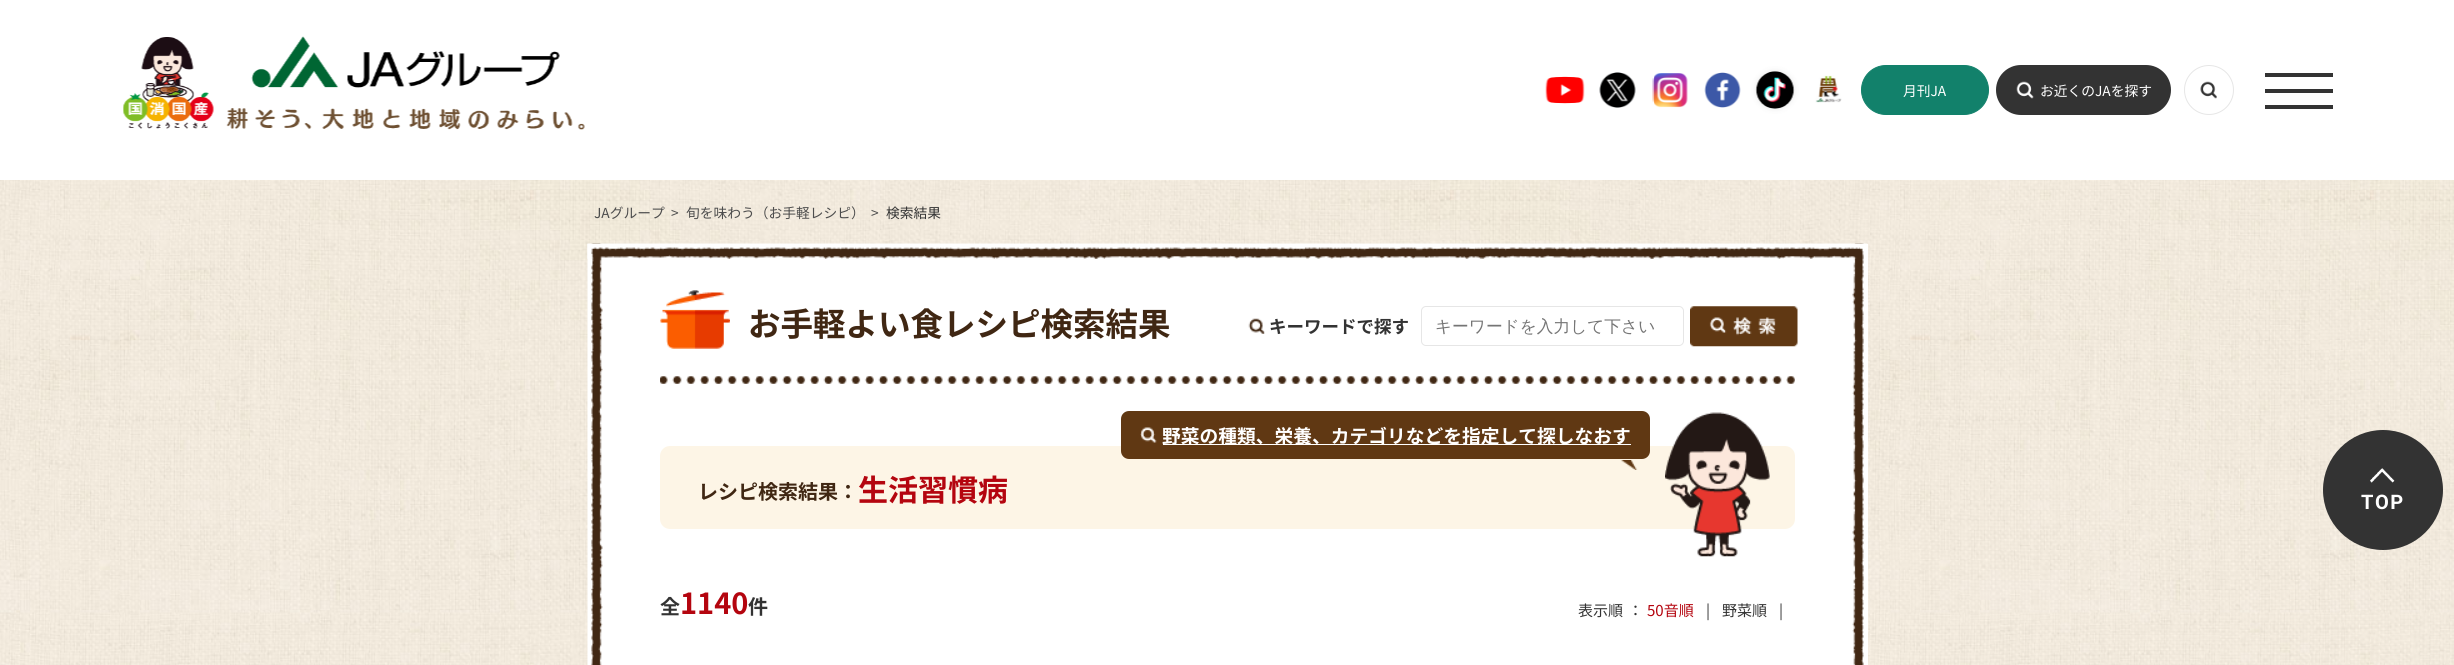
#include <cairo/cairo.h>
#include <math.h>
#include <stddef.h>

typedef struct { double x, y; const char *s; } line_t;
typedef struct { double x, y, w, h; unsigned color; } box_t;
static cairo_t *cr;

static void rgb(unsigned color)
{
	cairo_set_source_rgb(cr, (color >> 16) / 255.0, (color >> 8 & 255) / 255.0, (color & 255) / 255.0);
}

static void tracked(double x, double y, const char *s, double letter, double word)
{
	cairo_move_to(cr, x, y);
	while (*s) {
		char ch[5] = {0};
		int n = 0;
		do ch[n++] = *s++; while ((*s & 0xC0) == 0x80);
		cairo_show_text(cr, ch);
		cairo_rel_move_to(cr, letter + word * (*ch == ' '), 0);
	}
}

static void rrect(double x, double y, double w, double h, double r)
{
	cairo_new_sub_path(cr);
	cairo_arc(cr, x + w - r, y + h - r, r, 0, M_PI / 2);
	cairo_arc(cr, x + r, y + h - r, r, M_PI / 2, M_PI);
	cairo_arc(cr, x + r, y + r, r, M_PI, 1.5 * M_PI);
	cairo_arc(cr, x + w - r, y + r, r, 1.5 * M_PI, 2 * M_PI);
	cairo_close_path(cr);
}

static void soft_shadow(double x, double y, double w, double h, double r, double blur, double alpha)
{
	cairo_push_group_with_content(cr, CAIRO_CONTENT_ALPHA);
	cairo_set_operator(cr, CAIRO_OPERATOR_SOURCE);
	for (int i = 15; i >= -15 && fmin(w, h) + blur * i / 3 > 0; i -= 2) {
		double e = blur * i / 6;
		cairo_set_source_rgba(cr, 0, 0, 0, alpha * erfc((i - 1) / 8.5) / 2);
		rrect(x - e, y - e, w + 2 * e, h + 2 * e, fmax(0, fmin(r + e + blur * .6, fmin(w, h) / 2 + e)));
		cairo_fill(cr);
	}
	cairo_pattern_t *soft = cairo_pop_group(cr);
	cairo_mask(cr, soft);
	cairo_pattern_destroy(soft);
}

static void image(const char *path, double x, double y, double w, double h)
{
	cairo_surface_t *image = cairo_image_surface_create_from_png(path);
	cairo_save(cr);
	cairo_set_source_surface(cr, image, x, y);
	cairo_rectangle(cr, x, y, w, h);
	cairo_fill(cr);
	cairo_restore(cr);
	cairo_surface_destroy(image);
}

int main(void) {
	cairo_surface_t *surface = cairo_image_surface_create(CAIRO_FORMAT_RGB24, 2454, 665);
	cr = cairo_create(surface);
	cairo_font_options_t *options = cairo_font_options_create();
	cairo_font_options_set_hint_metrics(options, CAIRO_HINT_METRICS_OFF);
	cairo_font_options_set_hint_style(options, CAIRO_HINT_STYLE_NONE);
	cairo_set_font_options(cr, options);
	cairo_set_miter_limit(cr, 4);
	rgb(0xffffff);
	cairo_paint(cr);
	image("img/1.png", 123, 36, 462, 94);
	image("img/2.png", 1545, 76, 40, 28);
	image("img/3.png", 1599, 72, 37, 36);
	image("img/4.png", 1652, 73, 36, 35);
	image("img/5.png", 1704, 72, 37, 36);
	rgb(0x333333);
	soft_shadow(1756, 71, 38, 38, 19, 3, 0.1);
	image("img/6.png", 1755, 71, 40, 38);
	image("img/7.png", 1815, 75, 27, 28);
	rgb(0x12816b);
	rrect(1861.5, 65.5, 127, 49, 24.5);
	cairo_fill_preserve(cr);
	cairo_set_line_width(cr, 1);
	cairo_stroke(cr);
	rgb(0x333333);
	rrect(1996, 65, 175, 50, 25);
	cairo_fill(cr);
	image("img/8.png", 2016, 81, 18, 18);
	cairo_arc(cr, 2209, 90, 24.5, 0, 2 * M_PI);
	rgb(0xe6e6e6);
	cairo_stroke(cr);
	image("img/9.png", 2200, 81, 17, 18);
	{
		static const box_t items[] = {
			{2265, 73, 68, 4, 0x333333},
			{2265, 89, 68, 4, 0x333333},
			{2265, 105, 68, 4, 0x333333},
		};
		for (size_t i = 0; i < sizeof items / sizeof *items; i++) {
			rgb(items[i].color);
			cairo_rectangle(cr, items[i].x, items[i].y, items[i].w, items[i].h);
			cairo_fill(cr);
		}
	}
	image("img/10.png", 0, 180, 2454, 485);
	rgb(0xffffff);
	cairo_rectangle(cr, 1867, 244, 1, 421);
	cairo_fill(cr);
	image("img/11.png", 587, 243, 1281, 422);
	image("img/12.png", 587, 243, 1280, 16);
	image("img/13.png", 660, 376, 1135, 8);
	image("img/14.png", 660, 290, 70, 59);
	image("img/15.png", 1248, 318, 17, 16);
	rrect(1421.5, 306.5, 262, 39, 4.5);
	rgb(0xe6e6e6);
	cairo_stroke(cr);
	image("img/16.png", 1690, 306, 108, 41);
	rgb(0xfdf5e6);
	rrect(660, 446, 1135, 83, 10);
	cairo_fill(cr);
	rgb(0x603813);
	rrect(1121, 411, 529, 48, 8);
	cairo_fill(cr);
	image("img/17.png", 1140, 427, 17, 16);
	rgb(0xffffff);
	cairo_rectangle(cr, 1163, 444, 468, 1);
	cairo_fill(cr);
	image("img/18.png", 1621, 460, 17, 10);
	image("img/19.png", 1665, 412, 105, 145);
	rgb(0x333333);
	cairo_arc(cr, 2383, 490, 60, 0, 2 * M_PI);
	cairo_fill(cr);
	image("img/20.png", 2370, 468, 25, 15);
	cairo_select_font_face(cr, "Noto Sans JP", CAIRO_FONT_SLANT_NORMAL, CAIRO_FONT_WEIGHT_NORMAL);
	cairo_set_font_size(cr, 13.75);
	rgb(0xffffff);
	cairo_move_to(cr, 1903, 96);
	cairo_show_text(cr, "月刊JA");
	cairo_move_to(cr, 2040, 96);
	cairo_show_text(cr, "お近くのJAを探す");
	rgb(0x4d4d4d);
	{
		static const line_t items[] = {
			{594, 218, "JAグループ"},
			{671, 218, ">"},
			{686, 218, "旬を味わう（お手軽レシピ）"},
			{871, 218, ">"},
		};
		for (size_t i = 0; i < sizeof items / sizeof *items; i++) {
			cairo_move_to(cr, items[i].x, items[i].y);
			cairo_show_text(cr, items[i].s);
		}
	}
	rgb(0x333333);
	cairo_move_to(cr, 886, 218);
	cairo_show_text(cr, "検索結果");
	cairo_select_font_face(cr, "Noto Sans JP", CAIRO_FONT_SLANT_NORMAL, CAIRO_FONT_WEIGHT_BOLD);
	cairo_set_font_size(cr, 32.5);
	rgb(0x402713);
	cairo_move_to(cr, 748, 336);
	cairo_show_text(cr, "お手軽よい食レシピ検索結果");
	cairo_set_font_size(cr, 17.5);
	rgb(0x333333);
	cairo_move_to(cr, 1269, 333);
	cairo_show_text(cr, "キーワードで探す");
	cairo_select_font_face(cr, "WenQuanYi Zen Hei Medium", CAIRO_FONT_SLANT_NORMAL, CAIRO_FONT_WEIGHT_NORMAL);
	cairo_set_font_size(cr, 16.7);
	rgb(0x757575);
	cairo_move_to(cr, 1435, 332);
	cairo_show_text(cr, "キーワードを入力して下さい");
	cairo_select_font_face(cr, "Noto Sans JP", CAIRO_FONT_SLANT_NORMAL, CAIRO_FONT_WEIGHT_BOLD);
	cairo_set_font_size(cr, 18.75);
	rgb(0xffffff);
	cairo_move_to(cr, 1162, 443);
	cairo_show_text(cr, "野菜の種類、栄養、カテゴリなどを指定して探しなおす");
	cairo_set_font_size(cr, 20);
	rgb(0x402713);
	cairo_move_to(cr, 698, 499);
	cairo_show_text(cr, "レシピ検索結果：");
	cairo_set_font_size(cr, 30);
	rgb(0xb4050f);
	cairo_move_to(cr, 858, 501);
	cairo_show_text(cr, "生活習慣病");
	cairo_set_font_size(cr, 20);
	rgb(0x333333);
	cairo_move_to(cr, 660, 614);
	cairo_show_text(cr, "全");
	cairo_set_font_size(cr, 29);
	rgb(0xb4050f);
	cairo_move_to(cr, 680, 614);
	cairo_show_text(cr, "1140");
	cairo_set_font_size(cr, 20);
	rgb(0x333333);
	cairo_move_to(cr, 748, 614);
	cairo_show_text(cr, "件");
	cairo_select_font_face(cr, "Noto Sans JP", CAIRO_FONT_SLANT_NORMAL, CAIRO_FONT_WEIGHT_NORMAL);
	cairo_set_font_size(cr, 15);
	cairo_move_to(cr, 1578, 616);
	cairo_show_text(cr, "表示順");
	cairo_move_to(cr, 1628, 616);
	cairo_show_text(cr, "：");
	rgb(0xb4050f);
	cairo_move_to(cr, 1647, 616);
	cairo_show_text(cr, "50音順");
	rgb(0x333333);
	{
		static const line_t items[] = {
			{1706, 616, "|"},
			{1722, 616, "野菜順"},
			{1779, 616, "|"},
		};
		for (size_t i = 0; i < sizeof items / sizeof *items; i++) {
			cairo_move_to(cr, items[i].x, items[i].y);
			cairo_show_text(cr, items[i].s);
		}
	}
	cairo_select_font_face(cr, "Roboto", CAIRO_FONT_SLANT_NORMAL, CAIRO_FONT_WEIGHT_BOLD);
	cairo_set_font_size(cr, 20);
	rgb(0xffffff);
	tracked(2361, 509, "TOP", 1.5, 0);
	cairo_surface_write_to_png(surface, "page.png");
	cairo_font_options_destroy(options);
	cairo_destroy(cr);
	cairo_surface_destroy(surface);
	return 0;
}
